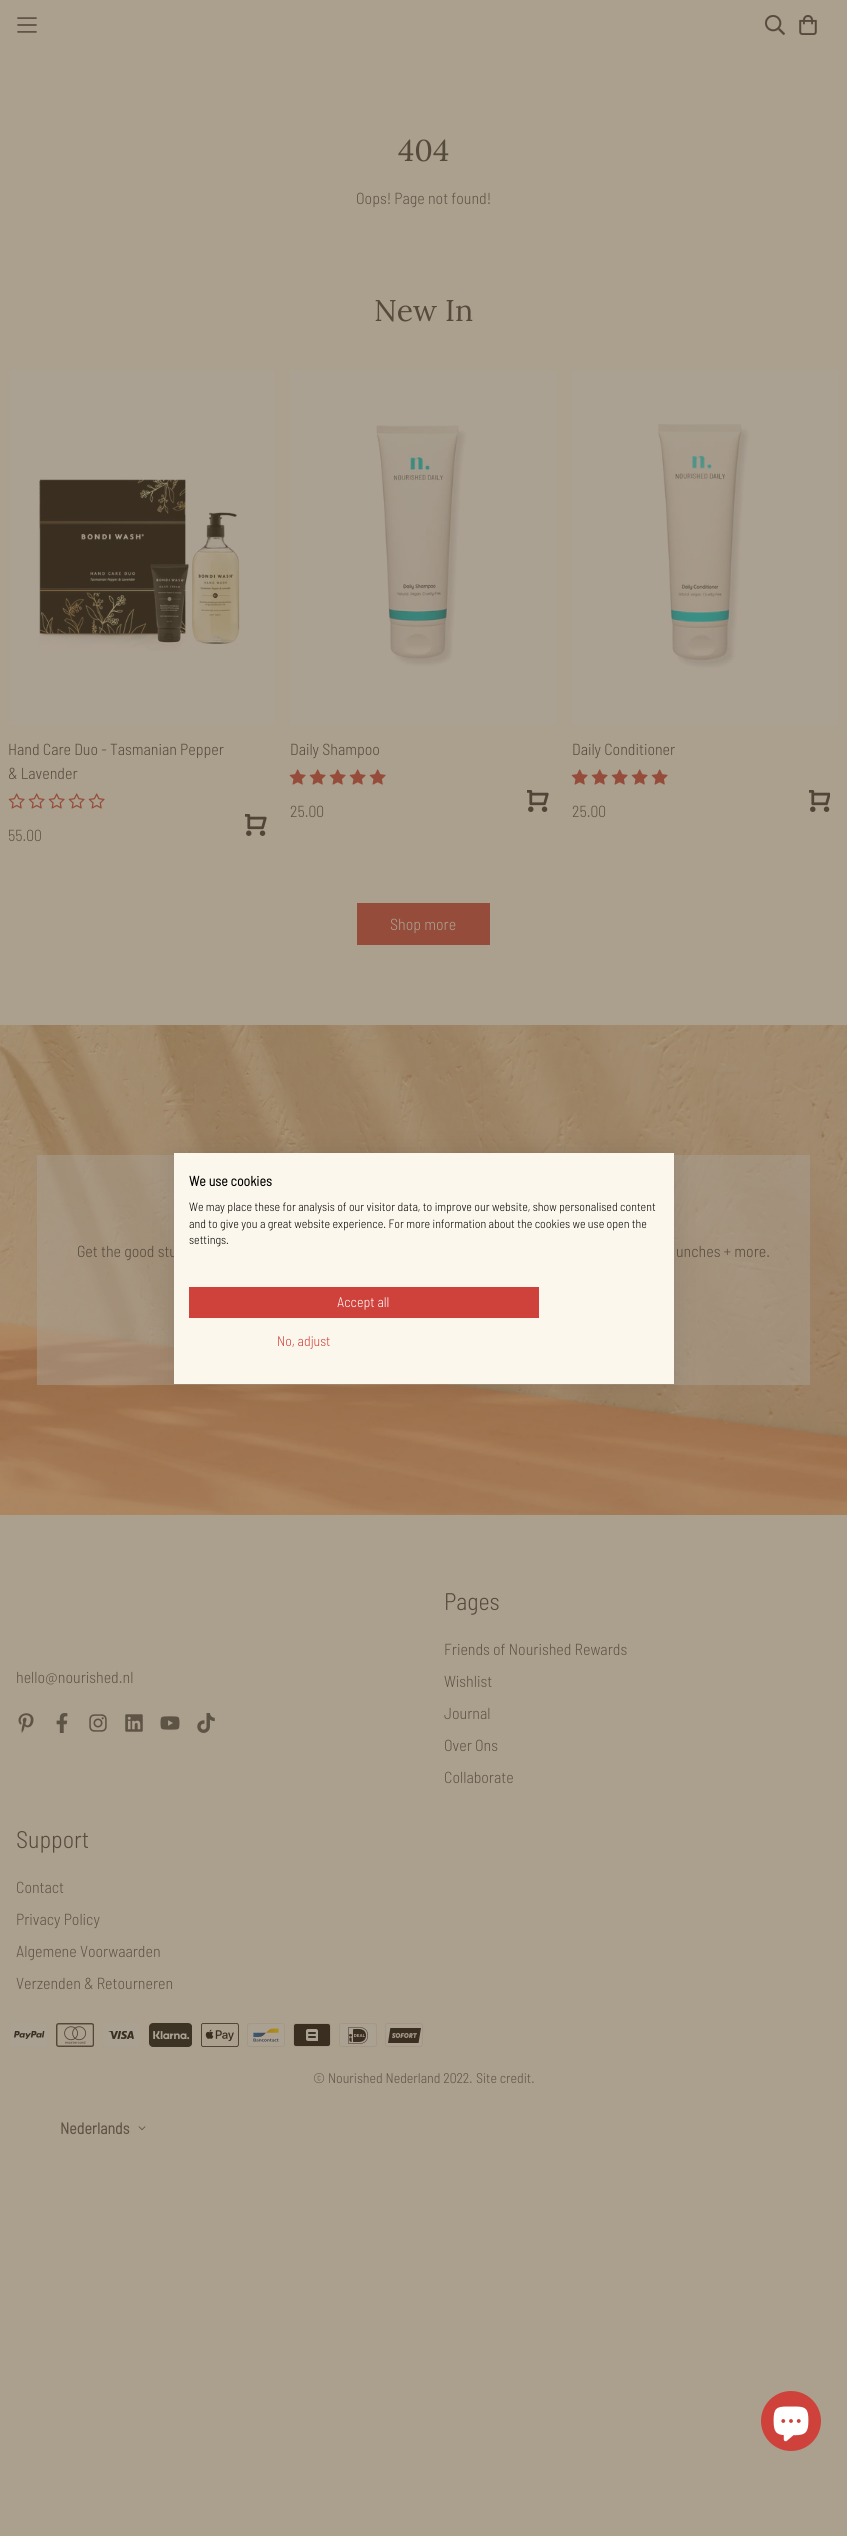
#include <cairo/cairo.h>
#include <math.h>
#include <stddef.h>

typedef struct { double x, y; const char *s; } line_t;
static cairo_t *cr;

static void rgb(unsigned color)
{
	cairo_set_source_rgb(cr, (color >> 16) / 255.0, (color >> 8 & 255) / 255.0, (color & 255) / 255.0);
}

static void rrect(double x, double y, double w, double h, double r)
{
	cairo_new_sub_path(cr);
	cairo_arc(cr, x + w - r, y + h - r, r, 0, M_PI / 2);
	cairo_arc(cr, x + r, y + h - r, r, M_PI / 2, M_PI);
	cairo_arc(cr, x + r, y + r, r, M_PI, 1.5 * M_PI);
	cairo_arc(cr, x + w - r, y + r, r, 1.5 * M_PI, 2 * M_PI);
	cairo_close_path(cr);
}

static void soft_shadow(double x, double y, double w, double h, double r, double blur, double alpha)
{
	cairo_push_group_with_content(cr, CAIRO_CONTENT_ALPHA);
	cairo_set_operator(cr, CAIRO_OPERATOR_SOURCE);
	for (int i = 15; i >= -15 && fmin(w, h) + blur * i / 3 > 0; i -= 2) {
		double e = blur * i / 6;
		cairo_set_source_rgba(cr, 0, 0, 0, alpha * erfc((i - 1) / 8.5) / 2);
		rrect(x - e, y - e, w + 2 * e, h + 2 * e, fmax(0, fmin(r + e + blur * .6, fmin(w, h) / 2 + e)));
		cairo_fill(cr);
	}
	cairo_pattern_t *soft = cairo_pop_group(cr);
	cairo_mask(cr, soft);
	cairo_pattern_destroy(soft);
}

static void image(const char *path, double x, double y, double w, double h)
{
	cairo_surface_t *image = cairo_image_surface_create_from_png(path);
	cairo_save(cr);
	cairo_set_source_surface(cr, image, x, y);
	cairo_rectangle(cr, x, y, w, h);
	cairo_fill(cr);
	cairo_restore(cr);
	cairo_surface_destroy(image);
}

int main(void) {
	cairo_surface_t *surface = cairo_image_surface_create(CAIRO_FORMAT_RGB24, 847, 2536);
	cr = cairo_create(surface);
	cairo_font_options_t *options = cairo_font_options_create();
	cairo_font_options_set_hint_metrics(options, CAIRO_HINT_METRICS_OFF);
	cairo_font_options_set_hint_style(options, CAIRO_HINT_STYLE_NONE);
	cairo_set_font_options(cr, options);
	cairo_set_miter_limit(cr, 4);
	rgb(0xab9f8d);
	cairo_paint(cr);
	image("img/1.png", 17, 17, 20, 16);
	image("img/2.png", 765, 15, 20, 20);
	image("img/3.png", 799, 15, 18, 20);
	rgb(0xaba193);
	cairo_rectangle(cr, 9, 370, 266, 355);
	cairo_fill(cr);
	image("img/4.png", 38, 478, 202, 173);
	image("img/5.png", 8, 793, 17, 16);
	image("img/5.png", 28, 793, 17, 16);
	image("img/5.png", 48, 793, 17, 16);
	image("img/5.png", 68, 793, 17, 16);
	image("img/5.png", 88, 793, 17, 16);
	image("img/6.png", 245, 814, 22, 22);
	cairo_rectangle(cr, 290, 370, 267, 355);
	cairo_fill(cr);
	image("img/7.png", 376, 425, 91, 241);
	image("img/8.png", 289, 769, 17, 16);
	image("img/8.png", 309, 769, 17, 16);
	image("img/8.png", 329, 769, 17, 16);
	image("img/8.png", 349, 769, 17, 16);
	image("img/8.png", 369, 769, 17, 16);
	image("img/6.png", 527, 790, 22, 22);
	cairo_rectangle(cr, 572, 370, 267, 355);
	cairo_fill(cr);
	image("img/9.png", 658, 424, 91, 245);
	image("img/8.png", 571, 769, 17, 16);
	image("img/8.png", 591, 769, 17, 16);
	image("img/8.png", 611, 769, 17, 16);
	image("img/8.png", 631, 769, 17, 16);
	image("img/8.png", 651, 769, 17, 16);
	image("img/10.png", 809, 790, 21, 22);
	rgb(0x954c3b);
	cairo_rectangle(cr, 357, 903, 133, 42);
	cairo_fill(cr);
	image("img/11.png", 0, 1025, 847, 490);
	cairo_set_source_rgba(cr, 0.671, 0.631, 0.576, 0.5);
	cairo_rectangle(cr, 37, 1155, 773, 230);
	cairo_fill(cr);
	rgb(0x000000);
	soft_shadow(174, 1153, 500, 231, 0, 12, 0.1);
	image("img/12.png", 18, 1713, 16, 20);
	image("img/13.png", 56, 1713, 12, 20);
	image("img/14.png", 89, 1714, 18, 18);
	image("img/15.png", 125, 1714, 18, 18);
	image("img/16.png", 160, 1716, 20, 14);
	image("img/17.png", 197, 1713, 18, 20);
	image("img/18.png", 10, 2023, 37, 24);
	image("img/19.png", 56, 2023, 38, 24);
	image("img/20.png", 103, 2023, 37, 24);
	image("img/21.png", 149, 2023, 43, 24);
	image("img/22.png", 201, 2023, 38, 24);
	image("img/23.png", 247, 2023, 38, 24);
	image("img/24.png", 293, 2023, 38, 24);
	image("img/25.png", 339, 2023, 38, 24);
	image("img/26.png", 385, 2023, 38, 24);
	image("img/27.png", 138, 2126, 8, 5);
	rgb(0xce423b);
	cairo_arc(cr, 791, 2421, 30, 0, 2 * M_PI);
	cairo_fill(cr);
	image("img/28.png", 773, 2406, 36, 36);
	cairo_select_font_face(cr, "Lora", CAIRO_FONT_SLANT_NORMAL, CAIRO_FONT_WEIGHT_NORMAL);
	cairo_set_font_size(cr, 30);
	rgb(0x554b3d);
	cairo_move_to(cr, 398, 161);
	cairo_show_text(cr, "404");
	cairo_select_font_face(cr, "Barlow Semi Condensed Light", CAIRO_FONT_SLANT_NORMAL, CAIRO_FONT_WEIGHT_NORMAL);
	cairo_set_font_size(cr, 16);
	rgb(0x5e5446);
	cairo_move_to(cr, 356, 204);
	cairo_show_text(cr, "Oops! Page not found!");
	cairo_select_font_face(cr, "Lora", CAIRO_FONT_SLANT_NORMAL, CAIRO_FONT_WEIGHT_NORMAL);
	cairo_set_font_size(cr, 30);
	rgb(0x554b3d);
	cairo_move_to(cr, 374, 321);
	cairo_show_text(cr, "New In");
	cairo_select_font_face(cr, "Barlow Semi Condensed Light", CAIRO_FONT_SLANT_NORMAL, CAIRO_FONT_WEIGHT_NORMAL);
	cairo_set_font_size(cr, 16);
	cairo_move_to(cr, 8, 755);
	cairo_show_text(cr, "Hand Care Duo - Tasmanian Pepper");
	cairo_move_to(cr, 8, 779);
	cairo_show_text(cr, "& Lavender");
	rgb(0x5e5446);
	cairo_move_to(cr, 8, 841);
	cairo_show_text(cr, "55.00");
	rgb(0x554b3d);
	cairo_move_to(cr, 290, 755);
	cairo_show_text(cr, "Daily Shampoo");
	rgb(0x5e5446);
	cairo_move_to(cr, 290, 817);
	cairo_show_text(cr, "25.00");
	rgb(0x554b3d);
	cairo_move_to(cr, 572, 755);
	cairo_show_text(cr, "Daily Conditioner");
	rgb(0x5e5446);
	cairo_move_to(cr, 572, 817);
	cairo_show_text(cr, "25.00");
	rgb(0xaba193);
	cairo_move_to(cr, 390, 930);
	cairo_show_text(cr, "Shop more");
	rgb(0x554b3d);
	cairo_move_to(cr, 77, 1257);
	cairo_show_text(cr, "Get the good stu");
	rgb(0xfcf7ec);
	cairo_rectangle(cr, 174, 1153, 500, 231);
	cairo_fill(cr);
	cairo_set_font_size(cr, 14);
	rgb(0xce423b);
	cairo_move_to(cr, 277, 1346);
	cairo_show_text(cr, "No, adjust");
	cairo_rectangle(cr, 189, 1287, 350, 31);
	cairo_fill(cr);
	rgb(0xffffff);
	cairo_move_to(cr, 337, 1307);
	cairo_show_text(cr, "Accept all");
	cairo_set_font_size(cr, 12);
	rgb(0x000000);
	{
		static const line_t items[] = {
			{189, 1244, "settings."},
			{189, 1228, "and to give you a great website experience. For more information about the cookies we use open the"},
			{189, 1211, "We may place these for analysis of our visitor data, to improve our website, show personalised content"},
		};
		for (size_t i = 0; i < sizeof items / sizeof *items; i++) {
			cairo_move_to(cr, items[i].x, items[i].y);
			cairo_show_text(cr, items[i].s);
		}
	}
	cairo_select_font_face(cr, "Barlow Semi Condensed", CAIRO_FONT_SLANT_NORMAL, CAIRO_FONT_WEIGHT_BOLD);
	cairo_set_font_size(cr, 14);
	cairo_move_to(cr, 189, 1186);
	cairo_show_text(cr, "We use cookies");
	cairo_select_font_face(cr, "Barlow Semi Condensed Light", CAIRO_FONT_SLANT_NORMAL, CAIRO_FONT_WEIGHT_NORMAL);
	cairo_set_font_size(cr, 16);
	rgb(0x554b3d);
	cairo_move_to(cr, 676, 1257);
	cairo_show_text(cr, "unches + more.");
	rgb(0x5e5446);
	cairo_move_to(cr, 16, 1683);
	cairo_show_text(cr, "hello@nourished.nl");
	cairo_set_font_size(cr, 24);
	rgb(0x554b3d);
	cairo_move_to(cr, 444, 1610);
	cairo_show_text(cr, "Pages");
	cairo_set_font_size(cr, 16);
	rgb(0x5e5446);
	{
		static const line_t items[] = {
			{444, 1655, "Friends of Nourished Rewards"},
			{444, 1687, "Wishlist"},
			{444, 1719, "Journal"},
			{444, 1751, "Over Ons"},
			{444, 1783, "Collaborate"},
		};
		for (size_t i = 0; i < sizeof items / sizeof *items; i++) {
			cairo_move_to(cr, items[i].x, items[i].y);
			cairo_show_text(cr, items[i].s);
		}
	}
	cairo_set_font_size(cr, 24);
	rgb(0x554b3d);
	cairo_move_to(cr, 16, 1848);
	cairo_show_text(cr, "Support");
	cairo_set_font_size(cr, 16);
	rgb(0x5e5446);
	{
		static const line_t items[] = {
			{16, 1893, "Contact"},
			{16, 1925, "Privacy Policy"},
			{16, 1957, "Algemene Voorwaarden"},
			{16, 1989, "Verzenden & Retourneren"},
		};
		for (size_t i = 0; i < sizeof items / sizeof *items; i++) {
			cairo_move_to(cr, items[i].x, items[i].y);
			cairo_show_text(cr, items[i].s);
		}
	}
	cairo_set_font_size(cr, 14);
	cairo_move_to(cr, 313, 2083);
	cairo_show_text(cr, "© Nourished Nederland 2022.");
	cairo_move_to(cr, 476, 2083);
	cairo_show_text(cr, "Site credit.");
	cairo_select_font_face(cr, "Barlow Semi Condensed", CAIRO_FONT_SLANT_NORMAL, CAIRO_FONT_WEIGHT_BOLD);
	cairo_set_font_size(cr, 16);
	cairo_move_to(cr, 60, 2134);
	cairo_show_text(cr, "Nederlands");
	cairo_surface_write_to_png(surface, "page.png");
	cairo_font_options_destroy(options);
	cairo_destroy(cr);
	cairo_surface_destroy(surface);
	return 0;
}
